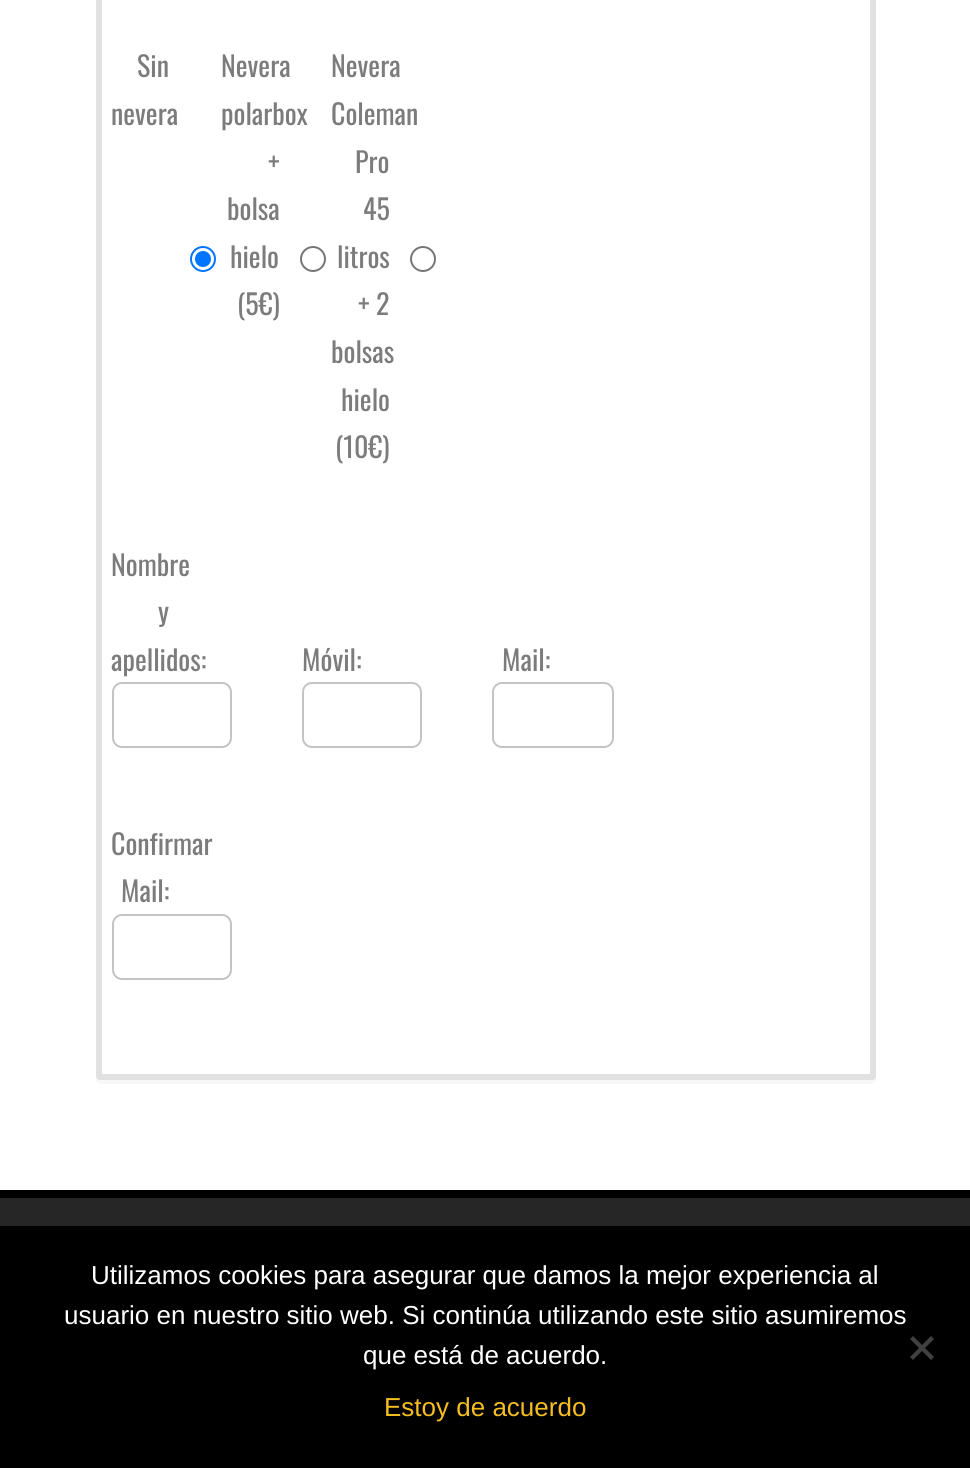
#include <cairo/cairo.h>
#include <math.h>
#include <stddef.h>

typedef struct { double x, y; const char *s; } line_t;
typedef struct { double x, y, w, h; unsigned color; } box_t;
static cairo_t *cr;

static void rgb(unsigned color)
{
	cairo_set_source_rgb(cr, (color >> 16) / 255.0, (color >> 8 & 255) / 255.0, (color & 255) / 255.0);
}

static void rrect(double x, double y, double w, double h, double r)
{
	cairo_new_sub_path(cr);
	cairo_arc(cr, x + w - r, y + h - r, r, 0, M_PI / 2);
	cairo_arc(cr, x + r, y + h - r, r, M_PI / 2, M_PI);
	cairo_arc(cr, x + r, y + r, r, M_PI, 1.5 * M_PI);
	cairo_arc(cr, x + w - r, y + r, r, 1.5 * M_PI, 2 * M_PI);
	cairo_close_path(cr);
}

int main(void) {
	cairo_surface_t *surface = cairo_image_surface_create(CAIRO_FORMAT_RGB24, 970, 1468);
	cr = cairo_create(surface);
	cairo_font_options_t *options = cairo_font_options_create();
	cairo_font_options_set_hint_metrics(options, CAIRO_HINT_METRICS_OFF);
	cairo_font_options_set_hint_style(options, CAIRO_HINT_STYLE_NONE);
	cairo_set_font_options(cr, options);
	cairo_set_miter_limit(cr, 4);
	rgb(0xffffff);
	cairo_paint(cr);
	rgb(0xf7f7f7);
	cairo_new_path(cr);
	cairo_move_to(cr, 96, 1076);
	cairo_line_to(cr, 96, 1080);
	cairo_curve_to(cr, 96, 1082, 98, 1084, 100, 1084);
	cairo_line_to(cr, 872, 1084);
	cairo_curve_to(cr, 874, 1084, 876, 1082, 876, 1080);
	cairo_line_to(cr, 876, 1076);
	cairo_curve_to(cr, 876, 1078, 874, 1080, 872, 1080);
	cairo_line_to(cr, 100, 1080);
	cairo_curve_to(cr, 98, 1080, 96, 1078, 96, 1076);
	cairo_close_path(cr);
	cairo_fill(cr);
	rrect(99, -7, 774, 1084, 1);
	rgb(0xe1e1e1);
	cairo_set_line_width(cr, 6);
	cairo_stroke(cr);
	cairo_arc(cr, 203, 259, 12, 0, 2 * M_PI);
	rgb(0x0075ff);
	cairo_set_line_width(cr, 2);
	cairo_stroke(cr);
	cairo_arc(cr, 203, 259, 8, 0, 2 * M_PI);
	cairo_fill(cr);
	cairo_arc(cr, 313, 259, 12, 0, 2 * M_PI);
	rgb(0x767676);
	cairo_stroke(cr);
	cairo_arc(cr, 423, 259, 12, 0, 2 * M_PI);
	cairo_stroke(cr);
	rrect(113, 683, 118, 64, 9);
	rgb(0xc4c4c4);
	cairo_stroke(cr);
	rrect(303, 683, 118, 64, 9);
	cairo_stroke(cr);
	rrect(493, 683, 120, 64, 9);
	cairo_stroke(cr);
	rrect(113, 915, 118, 64, 9);
	cairo_stroke(cr);
	{
		static const box_t items[] = {
			{0, 1198, 970, 28, 0x262626},
			{0, 1190, 970, 8, 0x000000},
			{0, 1226, 970, 242, 0x000000},
		};
		for (size_t i = 0; i < sizeof items / sizeof *items; i++) {
			rgb(items[i].color);
			cairo_rectangle(cr, items[i].x, items[i].y, items[i].w, items[i].h);
			cairo_fill(cr);
		}
	}
	rgb(0x404040);
	cairo_new_path(cr);
	cairo_move_to(cr, 931, 1336);
	cairo_line_to(cr, 934, 1339);
	cairo_line_to(cr, 913, 1360);
	cairo_line_to(cr, 910, 1357);
	cairo_close_path(cr);
	cairo_fill(cr);
	cairo_new_path(cr);
	cairo_move_to(cr, 910, 1339);
	cairo_line_to(cr, 913, 1336);
	cairo_line_to(cr, 934, 1357);
	cairo_line_to(cr, 931, 1360);
	cairo_close_path(cr);
	cairo_fill(cr);
	cairo_select_font_face(cr, "Oswald", CAIRO_FONT_SLANT_NORMAL, CAIRO_FONT_WEIGHT_NORMAL);
	cairo_set_font_size(cr, 28);
	rgb(0x7c7c7c);
	{
		static const line_t items[] = {
			{137, 77, "Sin"},
			{111, 125, "nevera"},
			{221, 77, "Nevera"},
			{221, 125, "polarbox"},
			{268, 173, "+"},
			{227, 220, "bolsa"},
			{230, 268, "hielo"},
			{237, 315, "(5€)"},
			{331, 77, "Nevera"},
			{331, 125, "Coleman"},
			{355, 173, "Pro"},
			{363, 220, "45"},
			{337, 268, "litros"},
			{358, 315, "+ 2"},
			{331, 363, "bolsas"},
			{341, 411, "hielo"},
			{335, 458, "(10€)"},
			{111, 576, "Nombre"},
			{158, 623, "y"},
			{111, 671, "apellidos:"},
			{302, 671, "Móvil:"},
			{502, 671, "Mail:"},
			{111, 855, "Confirmar"},
			{121, 902, "Mail:"},
		};
		for (size_t i = 0; i < sizeof items / sizeof *items; i++) {
			cairo_move_to(cr, items[i].x, items[i].y);
			cairo_show_text(cr, items[i].s);
		}
	}
	cairo_select_font_face(cr, "Liberation Sans", CAIRO_FONT_SLANT_NORMAL, CAIRO_FONT_WEIGHT_NORMAL);
	cairo_set_font_size(cr, 26);
	rgb(0xffffff);
	{
		static const line_t items[] = {
			{91, 1284, "Utilizamos cookies para asegurar que damos la mejor experiencia al"},
			{64, 1324, "usuario en nuestro sitio web. Si continúa utilizando este sitio asumiremos"},
			{363, 1364, "que está de acuerdo."},
		};
		for (size_t i = 0; i < sizeof items / sizeof *items; i++) {
			cairo_move_to(cr, items[i].x, items[i].y);
			cairo_show_text(cr, items[i].s);
		}
	}
	rgb(0xf4be20);
	cairo_move_to(cr, 384, 1416);
	cairo_show_text(cr, "Estoy de acuerdo");
	cairo_surface_write_to_png(surface, "page.png");
	cairo_font_options_destroy(options);
	cairo_destroy(cr);
	cairo_surface_destroy(surface);
	return 0;
}
